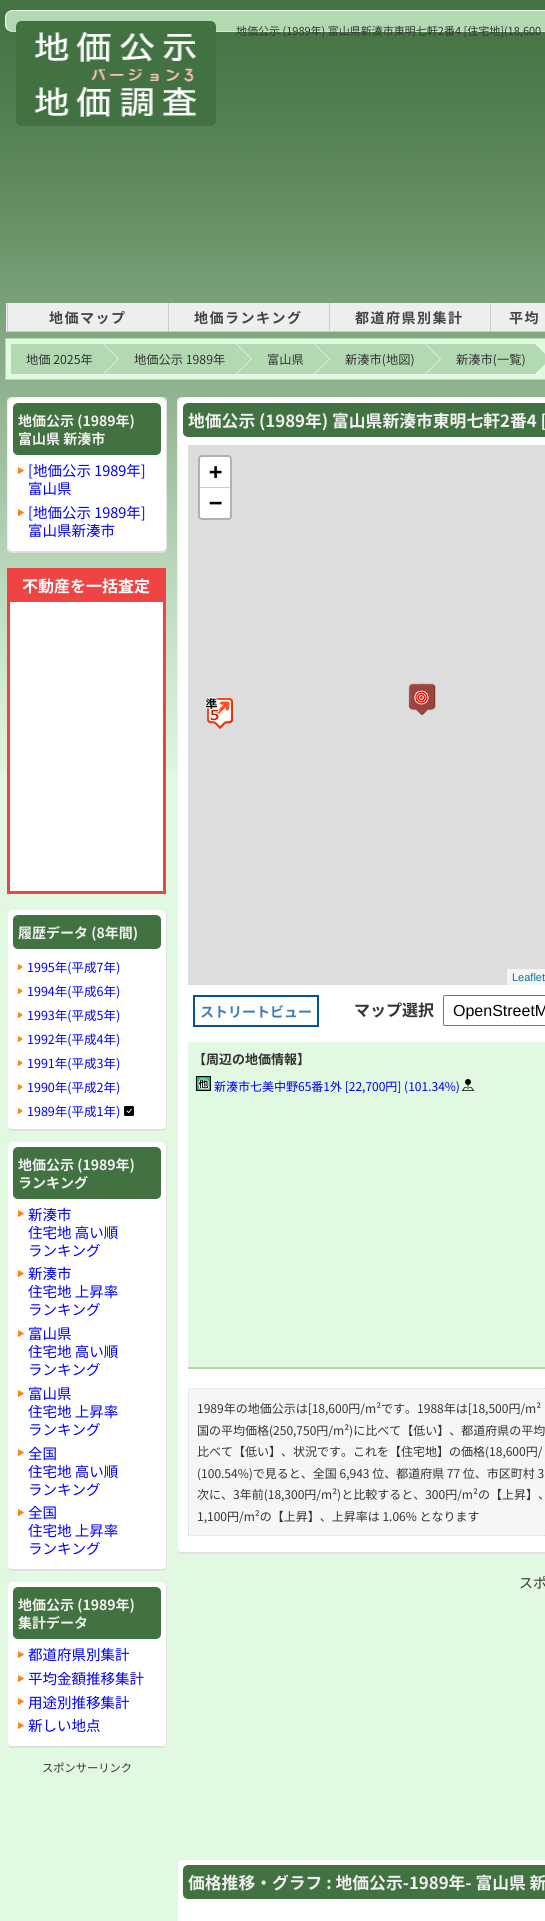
#include <cairo/cairo.h>
#include <math.h>
#include <stddef.h>

typedef struct { double x, y; const char *s; } line_t;
typedef struct { double x, y, w, h; unsigned color; } box_t;
static cairo_t *cr;

static void rgb(unsigned color)
{
	cairo_set_source_rgb(cr, (color >> 16) / 255.0, (color >> 8 & 255) / 255.0, (color & 255) / 255.0);
}

static void tracked(double x, double y, const char *s, double letter, double word)
{
	cairo_move_to(cr, x, y);
	while (*s) {
		char ch[5] = {0};
		int n = 0;
		do ch[n++] = *s++; while ((*s & 0xC0) == 0x80);
		cairo_show_text(cr, ch);
		cairo_rel_move_to(cr, letter + word * (*ch == ' '), 0);
	}
}

static void rrect(double x, double y, double w, double h, double r)
{
	cairo_new_sub_path(cr);
	cairo_arc(cr, x + w - r, y + h - r, r, 0, M_PI / 2);
	cairo_arc(cr, x + r, y + h - r, r, M_PI / 2, M_PI);
	cairo_arc(cr, x + r, y + r, r, M_PI, 1.5 * M_PI);
	cairo_arc(cr, x + w - r, y + r, r, 1.5 * M_PI, 2 * M_PI);
	cairo_close_path(cr);
}

static void image(const char *path, double x, double y, double w, double h)
{
	cairo_surface_t *image = cairo_image_surface_create_from_png(path);
	cairo_save(cr);
	cairo_set_source_surface(cr, image, x, y);
	cairo_rectangle(cr, x, y, w, h);
	cairo_fill(cr);
	cairo_restore(cr);
	cairo_surface_destroy(image);
}

int main(void) {
	cairo_surface_t *surface = cairo_image_surface_create(CAIRO_FORMAT_RGB24, 545, 1921);
	cr = cairo_create(surface);
	cairo_font_options_t *options = cairo_font_options_create();
	cairo_font_options_set_hint_metrics(options, CAIRO_HINT_METRICS_OFF);
	cairo_font_options_set_hint_style(options, CAIRO_HINT_STYLE_NONE);
	cairo_set_font_options(cr, options);
	cairo_set_miter_limit(cr, 4);
	rgb(0xe1f8e1);
	cairo_paint(cr);
	image("img/1.png", 0, 0, 545, 771);
	rgb(0xb2d9b2);
	rrect(5, 10, 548, 22, 8);
	cairo_fill(cr);
	cairo_new_path(cr);
	cairo_move_to(cr, 7.5, 12.5);
	cairo_curve_to(cr, 9, 11.5, 11, 10.5, 13, 10.5);
	cairo_line_to(cr, 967, 10.5);
	cairo_curve_to(cr, 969, 10.5, 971, 11.5, 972.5, 12.5);
	rgb(0xefefef);
	cairo_set_line_width(cr, 1);
	cairo_stroke(cr);
	cairo_new_path(cr);
	cairo_move_to(cr, 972.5, 29.5);
	cairo_curve_to(cr, 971, 30.5, 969, 31.5, 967, 31.5);
	cairo_line_to(cr, 13, 31.5);
	cairo_curve_to(cr, 11, 31.5, 9, 30.5, 7.5, 29.5);
	rgb(0xdfdfdf);
	cairo_stroke(cr);
	cairo_new_path(cr);
	cairo_move_to(cr, 7.5, 29.5);
	cairo_curve_to(cr, 5.5, 27, 5.5, 24, 5.5, 21);
	cairo_curve_to(cr, 5.5, 18, 5.5, 15, 7.5, 12.5);
	rgb(0xffffff);
	cairo_stroke(cr);
	image("img/2.png", 16, 21, 200, 105);
	{
		static const box_t items[] = {
			{6, 303, 539, 28, 0xeeeeee},
			{6, 331, 539, 1, 0xcccccc},
			{168, 303, 1, 28, 0xcccccc},
			{7, 303, 1, 28, 0xcccccc},
			{329, 303, 1, 28, 0xcccccc},
			{490, 303, 1, 28, 0xcccccc},
		};
		for (size_t i = 0; i < sizeof items / sizeof *items; i++) {
			rgb(items[i].color);
			cairo_rectangle(cr, items[i].x, items[i].y, items[i].w, items[i].h);
			cairo_fill(cr);
		}
	}
	rgb(0xe1f8e1);
	cairo_rectangle(cr, 5.5, 338.5, 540, 41);
	cairo_fill_preserve(cr);
	rgb(0xb2d9b2);
	cairo_stroke(cr);
	cairo_rectangle(cr, 11, 344, 92, 30);
	cairo_fill(cr);
	cairo_new_path(cr);
	cairo_move_to(cr, 103, 374);
	cairo_line_to(cr, 103, 344);
	cairo_line_to(cr, 118, 359);
	cairo_close_path(cr);
	cairo_fill(cr);
	cairo_rectangle(cr, 134, 344, 102, 30);
	cairo_fill(cr);
	cairo_new_path(cr);
	cairo_move_to(cr, 104, 344);
	cairo_line_to(cr, 134, 344);
	cairo_line_to(cr, 119, 359);
	cairo_close_path(cr);
	cairo_fill(cr);
	cairo_rectangle(cr, 119, 344, 15, 30);
	cairo_fill(cr);
	cairo_new_path(cr);
	cairo_move_to(cr, 134, 374);
	cairo_line_to(cr, 104, 374);
	cairo_line_to(cr, 119, 359);
	cairo_close_path(cr);
	cairo_fill(cr);
	cairo_new_path(cr);
	cairo_move_to(cr, 236, 374);
	cairo_line_to(cr, 236, 344);
	cairo_line_to(cr, 251, 359);
	cairo_close_path(cr);
	cairo_fill(cr);
	cairo_rectangle(cr, 267, 344, 47, 30);
	cairo_fill(cr);
	cairo_new_path(cr);
	cairo_move_to(cr, 237, 344);
	cairo_line_to(cr, 267, 344);
	cairo_line_to(cr, 252, 359);
	cairo_close_path(cr);
	cairo_fill(cr);
	cairo_rectangle(cr, 252, 344, 15, 30);
	cairo_fill(cr);
	cairo_new_path(cr);
	cairo_move_to(cr, 267, 374);
	cairo_line_to(cr, 237, 374);
	cairo_line_to(cr, 252, 359);
	cairo_close_path(cr);
	cairo_fill(cr);
	cairo_new_path(cr);
	cairo_move_to(cr, 314, 374);
	cairo_line_to(cr, 314, 344);
	cairo_line_to(cr, 329, 359);
	cairo_close_path(cr);
	cairo_fill(cr);
	cairo_rectangle(cr, 345, 344, 80, 30);
	cairo_fill(cr);
	cairo_new_path(cr);
	cairo_move_to(cr, 315, 344);
	cairo_line_to(cr, 345, 344);
	cairo_line_to(cr, 330, 359);
	cairo_close_path(cr);
	cairo_fill(cr);
	cairo_rectangle(cr, 330, 344, 15, 30);
	cairo_fill(cr);
	cairo_new_path(cr);
	cairo_move_to(cr, 345, 374);
	cairo_line_to(cr, 315, 374);
	cairo_line_to(cr, 330, 359);
	cairo_close_path(cr);
	cairo_fill(cr);
	cairo_new_path(cr);
	cairo_move_to(cr, 425, 374);
	cairo_line_to(cr, 425, 344);
	cairo_line_to(cr, 440, 359);
	cairo_close_path(cr);
	cairo_fill(cr);
	cairo_rectangle(cr, 456, 344, 79, 30);
	cairo_fill(cr);
	cairo_new_path(cr);
	cairo_move_to(cr, 535, 374);
	cairo_line_to(cr, 535, 344);
	cairo_line_to(cr, 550, 359);
	cairo_close_path(cr);
	cairo_fill(cr);
	rgb(0xffffff);
	cairo_new_path(cr);
	cairo_move_to(cr, 12, 398);
	cairo_line_to(cr, 162, 398);
	cairo_curve_to(cr, 164, 398, 166, 400, 166, 402);
	cairo_line_to(cr, 166, 548);
	cairo_curve_to(cr, 166, 550, 164, 551, 162, 551);
	cairo_line_to(cr, 12, 551);
	cairo_curve_to(cr, 10, 551, 8, 550, 8, 548);
	cairo_line_to(cr, 8, 402);
	cairo_curve_to(cr, 8, 400, 10, 398, 12, 398);
	cairo_close_path(cr);
	cairo_fill(cr);
	rgb(0xefefef);
	cairo_new_path(cr);
	cairo_move_to(cr, 12, 397);
	cairo_curve_to(cr, 10, 397, 9, 398, 8, 398);
	cairo_line_to(cr, 9, 399);
	cairo_curve_to(cr, 10, 398, 11, 398, 12, 398);
	cairo_line_to(cr, 162, 398);
	cairo_curve_to(cr, 163, 398, 164, 398, 165, 399);
	cairo_line_to(cr, 166, 398);
	cairo_curve_to(cr, 165, 398, 164, 397, 162, 397);
	cairo_close_path(cr);
	cairo_fill(cr);
	rgb(0xe3e3e3);
	cairo_new_path(cr);
	cairo_move_to(cr, 167, 548);
	cairo_line_to(cr, 167, 401);
	cairo_line_to(cr, 166, 398);
	cairo_line_to(cr, 165, 399);
	cairo_line_to(cr, 166, 402);
	cairo_line_to(cr, 166, 548);
	cairo_line_to(cr, 165, 550);
	cairo_line_to(cr, 166, 551);
	cairo_close_path(cr);
	cairo_fill(cr);
	rgb(0xdfdfdf);
	cairo_new_path(cr);
	cairo_move_to(cr, 12, 553);
	cairo_line_to(cr, 162, 553);
	cairo_curve_to(cr, 164, 553, 165, 552, 166, 551);
	cairo_line_to(cr, 165, 550);
	cairo_curve_to(cr, 165, 551, 163, 551, 162, 551);
	cairo_line_to(cr, 12, 551);
	cairo_curve_to(cr, 11, 551, 9, 551, 9, 550);
	cairo_line_to(cr, 8, 551);
	cairo_curve_to(cr, 9, 552, 10, 553, 12, 553);
	cairo_close_path(cr);
	cairo_fill(cr);
	rgb(0xefefef);
	cairo_new_path(cr);
	cairo_move_to(cr, 7, 402);
	cairo_line_to(cr, 7, 548);
	cairo_curve_to(cr, 7, 549, 7, 550, 8, 551);
	cairo_line_to(cr, 9, 550);
	cairo_line_to(cr, 8, 548);
	cairo_line_to(cr, 8, 402);
	cairo_line_to(cr, 9, 399);
	cairo_line_to(cr, 8, 398);
	cairo_curve_to(cr, 8, 399, 7, 400, 7, 402);
	cairo_close_path(cr);
	cairo_fill(cr);
	rgb(0x437242);
	rrect(13, 403, 148, 52, 5);
	cairo_fill(cr);
	image("img/3.png", 18, 467, 6, 7);
	image("img/3.png", 18, 509, 6, 7);
	rgb(0xffffff);
	cairo_rectangle(cr, 10, 602, 153, 289);
	cairo_fill(cr);
	cairo_rectangle(cr, 8.5, 569.5, 156, 323);
	rgb(0xee4444);
	cairo_set_line_width(cr, 3);
	cairo_stroke(cr);
	cairo_rectangle(cr, 10, 571, 153, 31);
	cairo_fill(cr);
	rgb(0xffffff);
	cairo_new_path(cr);
	cairo_move_to(cr, 12, 910);
	cairo_line_to(cr, 162, 910);
	cairo_curve_to(cr, 164, 910, 166, 912, 166, 914);
	cairo_line_to(cr, 166, 1126);
	cairo_curve_to(cr, 166, 1128, 164, 1129, 162, 1129);
	cairo_line_to(cr, 12, 1129);
	cairo_curve_to(cr, 10, 1129, 8, 1128, 8, 1126);
	cairo_line_to(cr, 8, 914);
	cairo_curve_to(cr, 8, 912, 10, 910, 12, 910);
	cairo_close_path(cr);
	cairo_fill(cr);
	rgb(0xefefef);
	cairo_new_path(cr);
	cairo_move_to(cr, 12, 909);
	cairo_curve_to(cr, 10, 909, 9, 910, 8, 910);
	cairo_line_to(cr, 9, 911);
	cairo_curve_to(cr, 10, 910, 11, 910, 12, 910);
	cairo_line_to(cr, 162, 910);
	cairo_curve_to(cr, 163, 910, 164, 910, 165, 911);
	cairo_line_to(cr, 166, 910);
	cairo_curve_to(cr, 165, 910, 164, 909, 162, 909);
	cairo_close_path(cr);
	cairo_fill(cr);
	rgb(0xe3e3e3);
	cairo_new_path(cr);
	cairo_move_to(cr, 167, 1126);
	cairo_line_to(cr, 167, 914);
	cairo_curve_to(cr, 167, 912, 166, 911, 166, 910);
	cairo_line_to(cr, 165, 911);
	cairo_line_to(cr, 166, 914);
	cairo_line_to(cr, 166, 1126);
	cairo_line_to(cr, 165, 1128);
	cairo_line_to(cr, 166, 1129);
	cairo_close_path(cr);
	cairo_fill(cr);
	rgb(0xdfdfdf);
	cairo_new_path(cr);
	cairo_move_to(cr, 12, 1131);
	cairo_line_to(cr, 162, 1131);
	cairo_curve_to(cr, 164, 1131, 165, 1130, 166, 1129);
	cairo_line_to(cr, 165, 1128);
	cairo_curve_to(cr, 165, 1129, 163, 1129, 162, 1129);
	cairo_line_to(cr, 12, 1129);
	cairo_curve_to(cr, 11, 1129, 9, 1129, 9, 1128);
	cairo_line_to(cr, 8, 1129);
	cairo_curve_to(cr, 9, 1130, 10, 1131, 12, 1131);
	cairo_close_path(cr);
	cairo_fill(cr);
	rgb(0xefefef);
	cairo_new_path(cr);
	cairo_move_to(cr, 7, 914);
	cairo_line_to(cr, 7, 1126);
	cairo_curve_to(cr, 7, 1127, 7, 1128, 8, 1129);
	cairo_line_to(cr, 9, 1128);
	cairo_line_to(cr, 8, 1126);
	cairo_line_to(cr, 8, 914);
	cairo_line_to(cr, 9, 911);
	cairo_line_to(cr, 8, 910);
	cairo_curve_to(cr, 8, 911, 7, 912, 7, 914);
	cairo_close_path(cr);
	cairo_fill(cr);
	rgb(0x437242);
	rrect(13, 915, 148, 34, 5);
	cairo_fill(cr);
	image("img/4.png", 18, 964, 5, 6);
	image("img/4.png", 18, 988, 5, 6);
	image("img/4.png", 18, 1012, 5, 6);
	image("img/4.png", 18, 1036, 5, 6);
	image("img/4.png", 18, 1060, 5, 6);
	image("img/4.png", 18, 1084, 5, 6);
	image("img/4.png", 18, 1108, 5, 6);
	image("img/5.png", 124, 1106, 10, 10);
	rgb(0xffffff);
	cairo_new_path(cr);
	cairo_move_to(cr, 12, 1142);
	cairo_line_to(cr, 162, 1142);
	cairo_curve_to(cr, 164, 1142, 166, 1144, 166, 1146);
	cairo_line_to(cr, 166, 1566);
	cairo_curve_to(cr, 166, 1568, 164, 1569, 162, 1569);
	cairo_line_to(cr, 12, 1569);
	cairo_curve_to(cr, 10, 1569, 8, 1568, 8, 1566);
	cairo_line_to(cr, 8, 1146);
	cairo_curve_to(cr, 8, 1144, 10, 1142, 12, 1142);
	cairo_close_path(cr);
	cairo_fill(cr);
	rgb(0xefefef);
	cairo_new_path(cr);
	cairo_move_to(cr, 12, 1141);
	cairo_curve_to(cr, 10, 1141, 9, 1142, 8, 1142);
	cairo_line_to(cr, 9, 1143);
	cairo_curve_to(cr, 10, 1142, 11, 1142, 12, 1142);
	cairo_line_to(cr, 162, 1142);
	cairo_curve_to(cr, 163, 1142, 164, 1142, 165, 1143);
	cairo_line_to(cr, 166, 1142);
	cairo_curve_to(cr, 165, 1142, 164, 1141, 162, 1141);
	cairo_close_path(cr);
	cairo_fill(cr);
	rgb(0xe3e3e3);
	cairo_new_path(cr);
	cairo_move_to(cr, 167, 1566);
	cairo_line_to(cr, 167, 1146);
	cairo_curve_to(cr, 167, 1144, 166, 1143, 166, 1142);
	cairo_line_to(cr, 165, 1143);
	cairo_line_to(cr, 166, 1146);
	cairo_line_to(cr, 166, 1566);
	cairo_line_to(cr, 165, 1568);
	cairo_line_to(cr, 166, 1569);
	cairo_close_path(cr);
	cairo_fill(cr);
	rgb(0xdfdfdf);
	cairo_new_path(cr);
	cairo_move_to(cr, 12, 1571);
	cairo_line_to(cr, 162, 1571);
	cairo_curve_to(cr, 164, 1571, 165, 1570, 166, 1569);
	cairo_line_to(cr, 165, 1568);
	cairo_curve_to(cr, 165, 1569, 163, 1569, 162, 1569);
	cairo_line_to(cr, 12, 1569);
	cairo_curve_to(cr, 11, 1569, 9, 1569, 9, 1568);
	cairo_line_to(cr, 8, 1569);
	cairo_curve_to(cr, 9, 1570, 10, 1571, 12, 1571);
	cairo_close_path(cr);
	cairo_fill(cr);
	rgb(0xefefef);
	cairo_new_path(cr);
	cairo_move_to(cr, 7, 1146);
	cairo_line_to(cr, 7, 1566);
	cairo_line_to(cr, 8, 1569);
	cairo_line_to(cr, 9, 1568);
	cairo_line_to(cr, 8, 1566);
	cairo_line_to(cr, 8, 1146);
	cairo_line_to(cr, 9, 1143);
	cairo_line_to(cr, 8, 1142);
	cairo_curve_to(cr, 8, 1143, 7, 1144, 7, 1146);
	cairo_close_path(cr);
	cairo_fill(cr);
	rgb(0x437242);
	rrect(13, 1147, 148, 52, 5);
	cairo_fill(cr);
	image("img/3.png", 18, 1210, 6, 7);
	image("img/3.png", 18, 1270, 6, 7);
	image("img/3.png", 18, 1330, 6, 7);
	image("img/3.png", 18, 1390, 6, 7);
	image("img/3.png", 18, 1449, 6, 7);
	image("img/3.png", 18, 1509, 6, 7);
	rgb(0xffffff);
	cairo_new_path(cr);
	cairo_move_to(cr, 12, 1582);
	cairo_line_to(cr, 162, 1582);
	cairo_curve_to(cr, 164, 1582, 166, 1584, 166, 1586);
	cairo_line_to(cr, 166, 1743);
	cairo_curve_to(cr, 166, 1745, 164, 1746, 162, 1746);
	cairo_line_to(cr, 12, 1746);
	cairo_curve_to(cr, 10, 1746, 8, 1745, 8, 1743);
	cairo_line_to(cr, 8, 1586);
	cairo_curve_to(cr, 8, 1584, 10, 1582, 12, 1582);
	cairo_close_path(cr);
	cairo_fill(cr);
	rgb(0xefefef);
	cairo_new_path(cr);
	cairo_move_to(cr, 12, 1581);
	cairo_curve_to(cr, 10, 1581, 9, 1582, 8, 1582);
	cairo_line_to(cr, 9, 1583);
	cairo_curve_to(cr, 10, 1582, 11, 1582, 12, 1582);
	cairo_line_to(cr, 162, 1582);
	cairo_curve_to(cr, 163, 1582, 164, 1582, 165, 1583);
	cairo_line_to(cr, 166, 1582);
	cairo_curve_to(cr, 165, 1582, 164, 1581, 162, 1581);
	cairo_close_path(cr);
	cairo_fill(cr);
	rgb(0xe3e3e3);
	cairo_new_path(cr);
	cairo_move_to(cr, 167, 1743);
	cairo_line_to(cr, 167, 1585);
	cairo_line_to(cr, 166, 1582);
	cairo_line_to(cr, 165, 1583);
	cairo_line_to(cr, 166, 1586);
	cairo_line_to(cr, 166, 1743);
	cairo_line_to(cr, 165, 1745);
	cairo_line_to(cr, 166, 1746);
	cairo_close_path(cr);
	cairo_fill(cr);
	rgb(0xdfdfdf);
	cairo_new_path(cr);
	cairo_move_to(cr, 12, 1748);
	cairo_line_to(cr, 162, 1748);
	cairo_curve_to(cr, 164, 1748, 165, 1747, 166, 1746);
	cairo_line_to(cr, 165, 1745);
	cairo_curve_to(cr, 165, 1746, 163, 1746, 162, 1746);
	cairo_line_to(cr, 12, 1746);
	cairo_curve_to(cr, 11, 1746, 9, 1746, 9, 1745);
	cairo_line_to(cr, 8, 1746);
	cairo_curve_to(cr, 9, 1747, 10, 1748, 12, 1748);
	cairo_close_path(cr);
	cairo_fill(cr);
	rgb(0xefefef);
	cairo_new_path(cr);
	cairo_move_to(cr, 7, 1586);
	cairo_line_to(cr, 7, 1743);
	cairo_curve_to(cr, 7, 1744, 7, 1745, 8, 1746);
	cairo_line_to(cr, 9, 1745);
	cairo_line_to(cr, 8, 1743);
	cairo_line_to(cr, 8, 1586);
	cairo_line_to(cr, 9, 1583);
	cairo_line_to(cr, 8, 1582);
	cairo_curve_to(cr, 8, 1583, 7, 1584, 7, 1586);
	cairo_close_path(cr);
	cairo_fill(cr);
	rgb(0x437242);
	rrect(13, 1587, 148, 52, 5);
	cairo_fill(cr);
	image("img/3.png", 18, 1651, 6, 7);
	image("img/3.png", 18, 1675, 6, 7);
	image("img/3.png", 18, 1698, 6, 7);
	image("img/3.png", 18, 1722, 6, 7);
	rgb(0xffffff);
	cairo_new_path(cr);
	cairo_move_to(cr, 182, 398);
	cairo_line_to(cr, 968, 398);
	cairo_curve_to(cr, 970, 398, 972, 400, 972, 402);
	cairo_line_to(cr, 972, 1549);
	cairo_curve_to(cr, 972, 1551, 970, 1552, 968, 1552);
	cairo_line_to(cr, 182, 1552);
	cairo_curve_to(cr, 180, 1552, 178, 1551, 178, 1549);
	cairo_line_to(cr, 178, 402);
	cairo_curve_to(cr, 178, 400, 180, 398, 182, 398);
	cairo_close_path(cr);
	cairo_fill(cr);
	rgb(0xefefef);
	cairo_new_path(cr);
	cairo_move_to(cr, 182, 397);
	cairo_curve_to(cr, 180, 397, 179, 398, 178, 398);
	cairo_line_to(cr, 179, 399);
	cairo_line_to(cr, 182, 398);
	cairo_line_to(cr, 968, 398);
	cairo_line_to(cr, 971, 399);
	cairo_line_to(cr, 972, 398);
	cairo_curve_to(cr, 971, 398, 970, 397, 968, 397);
	cairo_close_path(cr);
	cairo_fill(cr);
	rgb(0xdfdfdf);
	cairo_new_path(cr);
	cairo_move_to(cr, 182, 1554);
	cairo_line_to(cr, 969, 1554);
	cairo_line_to(cr, 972, 1552);
	cairo_line_to(cr, 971, 1551);
	cairo_curve_to(cr, 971, 1552, 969, 1552, 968, 1552);
	cairo_line_to(cr, 182, 1552);
	cairo_curve_to(cr, 181, 1552, 179, 1552, 179, 1551);
	cairo_line_to(cr, 178, 1552);
	cairo_curve_to(cr, 179, 1553, 180, 1554, 182, 1554);
	cairo_close_path(cr);
	cairo_fill(cr);
	rgb(0xefefef);
	cairo_new_path(cr);
	cairo_move_to(cr, 177, 402);
	cairo_line_to(cr, 177, 1549);
	cairo_line_to(cr, 178, 1552);
	cairo_line_to(cr, 179, 1551);
	cairo_line_to(cr, 178, 1549);
	cairo_line_to(cr, 178, 402);
	cairo_line_to(cr, 179, 399);
	cairo_line_to(cr, 178, 398);
	cairo_curve_to(cr, 178, 399, 177, 400, 177, 402);
	cairo_close_path(cr);
	cairo_fill(cr);
	rgb(0x437242);
	rrect(183, 403, 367, 34, 5);
	cairo_fill(cr);
	rgb(0xdddddd);
	cairo_rectangle(cr, 188, 445, 357, 540);
	cairo_fill(cr);
	rrect(199, 456, 32, 63, 3);
	rgb(0xb1b1b1);
	cairo_set_line_width(cr, 2);
	cairo_stroke(cr);
	rgb(0xffffff);
	cairo_new_path(cr);
	cairo_move_to(cr, 202, 457);
	cairo_line_to(cr, 228, 457);
	cairo_curve_to(cr, 229, 457, 230, 458, 230, 459);
	cairo_line_to(cr, 230, 488);
	cairo_line_to(cr, 200, 488);
	cairo_line_to(cr, 200, 459);
	cairo_curve_to(cr, 200, 458, 201, 457, 202, 457);
	cairo_close_path(cr);
	cairo_fill(cr);
	rgb(0xcccccc);
	cairo_rectangle(cr, 200, 487, 30, 1);
	cairo_fill(cr);
	rgb(0xffffff);
	cairo_new_path(cr);
	cairo_move_to(cr, 200, 488);
	cairo_line_to(cr, 230, 488);
	cairo_line_to(cr, 230, 516);
	cairo_curve_to(cr, 230, 517, 229, 518, 228, 518);
	cairo_line_to(cr, 202, 518);
	cairo_curve_to(cr, 201, 518, 200, 517, 200, 516);
	cairo_close_path(cr);
	cairo_fill(cr);
	rgb(0xf5f5f5);
	cairo_rectangle(cr, 507, 969, 38, 16);
	cairo_fill(cr);
	image("img/6.png", 204, 697, 29, 32);
	image("img/7.png", 408, 683, 28, 32);
	cairo_rectangle(cr, 194, 996, 124, 30);
	rgb(0x01579b);
	cairo_stroke(cr);
	rrect(443.5, 995.5, 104, 30, 1.5);
	rgb(0x767676);
	cairo_set_line_width(cr, 1);
	cairo_stroke(cr);
	rgb(0xe1f8e1);
	cairo_rectangle(cr, 188, 1042, 357, 325);
	cairo_fill(cr);
	rgb(0xb2d9b2);
	cairo_rectangle(cr, 188, 1367, 357, 2);
	cairo_fill(cr);
	image("img/8.png", 196, 1076, 15, 15);
	image("img/9.png", 462, 1079, 12, 12);
	rgb(0xf6f6f6);
	cairo_rectangle(cr, 188, 1388, 357, 148);
	cairo_fill(cr);
	cairo_new_path(cr);
	cairo_move_to(cr, 188, 1388.5);
	cairo_line_to(cr, 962, 1388.5);
	rgb(0xdddddd);
	cairo_set_dash(cr, (double[]){1, 1}, 2, 0);
	cairo_stroke(cr);
	cairo_new_path(cr);
	cairo_move_to(cr, 188, 1535.5);
	cairo_line_to(cr, 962, 1535.5);
	cairo_stroke(cr);
	cairo_new_path(cr);
	cairo_move_to(cr, 188.5, 1388);
	cairo_line_to(cr, 188.5, 1536);
	cairo_stroke(cr);
	rgb(0xffffff);
	cairo_new_path(cr);
	cairo_move_to(cr, 182, 1860);
	cairo_line_to(cr, 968, 1860);
	cairo_curve_to(cr, 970, 1860, 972, 1862, 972, 1864);
	cairo_line_to(cr, 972, 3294);
	cairo_curve_to(cr, 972, 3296, 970, 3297, 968, 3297);
	cairo_line_to(cr, 182, 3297);
	cairo_curve_to(cr, 180, 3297, 178, 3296, 178, 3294);
	cairo_line_to(cr, 178, 1864);
	cairo_curve_to(cr, 178, 1862, 180, 1860, 182, 1860);
	cairo_close_path(cr);
	cairo_fill(cr);
	rgb(0xefefef);
	cairo_new_path(cr);
	cairo_move_to(cr, 182, 1859);
	cairo_curve_to(cr, 180, 1859, 179, 1860, 178, 1860);
	cairo_line_to(cr, 179, 1861);
	cairo_line_to(cr, 182, 1860);
	cairo_line_to(cr, 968, 1860);
	cairo_line_to(cr, 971, 1861);
	cairo_line_to(cr, 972, 1860);
	cairo_curve_to(cr, 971, 1860, 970, 1859, 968, 1859);
	cairo_close_path(cr);
	cairo_fill(cr);
	cairo_new_path(cr);
	cairo_move_to(cr, 177, 1864);
	cairo_line_to(cr, 177, 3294);
	cairo_line_to(cr, 178, 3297);
	cairo_line_to(cr, 179, 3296);
	cairo_line_to(cr, 178, 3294);
	cairo_line_to(cr, 178, 1864);
	cairo_line_to(cr, 179, 1861);
	cairo_line_to(cr, 178, 1860);
	cairo_curve_to(cr, 178, 1861, 177, 1862, 177, 1864);
	cairo_close_path(cr);
	cairo_fill(cr);
	rgb(0x437242);
	rrect(183, 1865, 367, 34, 5);
	cairo_fill(cr);
	cairo_select_font_face(cr, "Noto Sans JP", CAIRO_FONT_SLANT_NORMAL, CAIRO_FONT_WEIGHT_NORMAL);
	cairo_set_font_size(cr, 11);
	rgb(0x333333);
	cairo_move_to(cr, 236, 35);
	cairo_show_text(cr, "地価公示 (1989年) 富山県新湊市東明七軒2番4 [住宅地](18,600");
	cairo_select_font_face(cr, "Noto Sans JP", CAIRO_FONT_SLANT_NORMAL, CAIRO_FONT_WEIGHT_BOLD);
	cairo_set_font_size(cr, 14);
	rgb(0x444444);
	{
		static const line_t items[] = {
			{49, 323, "地価マップ"},
			{194, 323, "地価ランキング"},
			{355, 323, "都道府県別集計"},
			{509, 323, "平均"},
		};
		for (size_t i = 0; i < sizeof items / sizeof *items; i++) {
			tracked(items[i].x, items[i].y, items[i].s, 1.5, 0);
		}
	}
	cairo_select_font_face(cr, "Noto Sans JP", CAIRO_FONT_SLANT_NORMAL, CAIRO_FONT_WEIGHT_NORMAL);
	cairo_set_font_size(cr, 12.25);
	rgb(0x333333);
	{
		static const line_t items[] = {
			{26, 364, "地価 2025年"},
			{134, 364, "地価公示 1989年"},
			{267, 364, "富山県"},
			{345, 364, "新湊市(地図)"},
			{456, 364, "新湊市(一覧)"},
		};
		for (size_t i = 0; i < sizeof items / sizeof *items; i++) {
			cairo_move_to(cr, items[i].x, items[i].y);
			cairo_show_text(cr, items[i].s);
		}
	}
	rgb(0xb2d9b2);
	cairo_new_path(cr);
	cairo_move_to(cr, 426, 344);
	cairo_line_to(cr, 456, 344);
	cairo_line_to(cr, 441, 359);
	cairo_close_path(cr);
	cairo_fill(cr);
	cairo_rectangle(cr, 441, 344, 15, 30);
	cairo_fill(cr);
	cairo_new_path(cr);
	cairo_move_to(cr, 456, 374);
	cairo_line_to(cr, 426, 374);
	cairo_line_to(cr, 441, 359);
	cairo_close_path(cr);
	cairo_fill(cr);
	cairo_select_font_face(cr, "Noto Sans JP", CAIRO_FONT_SLANT_NORMAL, CAIRO_FONT_WEIGHT_BOLD);
	cairo_set_font_size(cr, 14);
	rgb(0xf0f0f0);
	cairo_move_to(cr, 18, 426);
	cairo_show_text(cr, "地価公示 (1989年)");
	cairo_move_to(cr, 18, 444);
	cairo_show_text(cr, "富山県 新湊市");
	cairo_select_font_face(cr, "Noto Sans JP", CAIRO_FONT_SLANT_NORMAL, CAIRO_FONT_WEIGHT_NORMAL);
	cairo_set_font_size(cr, 14.5);
	rgb(0x0000ff);
	{
		static const line_t items[] = {
			{28, 476, "[地価公示 1989年]"},
			{28, 494, "富山県"},
			{28, 518, "[地価公示 1989年]"},
			{28, 536, "富山県新湊市"},
		};
		for (size_t i = 0; i < sizeof items / sizeof *items; i++) {
			cairo_move_to(cr, items[i].x, items[i].y);
			cairo_show_text(cr, items[i].s);
		}
	}
	cairo_select_font_face(cr, "Noto Sans JP", CAIRO_FONT_SLANT_NORMAL, CAIRO_FONT_WEIGHT_BOLD);
	cairo_set_font_size(cr, 16);
	rgb(0xffffff);
	cairo_move_to(cr, 22, 592);
	cairo_show_text(cr, "不動産を一括査定");
	cairo_set_font_size(cr, 14);
	rgb(0xf0f0f0);
	cairo_move_to(cr, 18, 938);
	cairo_show_text(cr, "履歴データ (8年間)");
	cairo_select_font_face(cr, "Noto Sans JP", CAIRO_FONT_SLANT_NORMAL, CAIRO_FONT_WEIGHT_NORMAL);
	cairo_set_font_size(cr, 12.5);
	rgb(0x0000ff);
	{
		static const line_t items[] = {
			{27, 972, "1995年(平成7年)"},
			{27, 996, "1994年(平成6年)"},
			{27, 1020, "1993年(平成5年)"},
			{27, 1044, "1992年(平成4年)"},
			{27, 1068, "1991年(平成3年)"},
			{27, 1092, "1990年(平成2年)"},
			{27, 1116, "1989年(平成1年)"},
		};
		for (size_t i = 0; i < sizeof items / sizeof *items; i++) {
			cairo_move_to(cr, items[i].x, items[i].y);
			cairo_show_text(cr, items[i].s);
		}
	}
	cairo_select_font_face(cr, "Noto Sans JP", CAIRO_FONT_SLANT_NORMAL, CAIRO_FONT_WEIGHT_BOLD);
	cairo_set_font_size(cr, 14);
	rgb(0xf0f0f0);
	cairo_move_to(cr, 18, 1170);
	cairo_show_text(cr, "地価公示 (1989年)");
	cairo_move_to(cr, 18, 1188);
	cairo_show_text(cr, "ランキング");
	cairo_select_font_face(cr, "Noto Sans JP", CAIRO_FONT_SLANT_NORMAL, CAIRO_FONT_WEIGHT_NORMAL);
	cairo_set_font_size(cr, 14.5);
	rgb(0x0000ff);
	{
		static const line_t items[] = {
			{28, 1220, "新湊市"},
			{28, 1238, "住宅地 高い順"},
			{28, 1256, "ランキング"},
			{28, 1279, "新湊市"},
			{28, 1297, "住宅地 上昇率"},
			{28, 1315, "ランキング"},
			{28, 1339, "富山県"},
			{28, 1357, "住宅地 高い順"},
			{28, 1375, "ランキング"},
			{28, 1399, "富山県"},
			{28, 1417, "住宅地 上昇率"},
			{28, 1435, "ランキング"},
			{28, 1459, "全国"},
			{28, 1477, "住宅地 高い順"},
			{28, 1495, "ランキング"},
			{28, 1518, "全国"},
			{28, 1536, "住宅地 上昇率"},
			{28, 1554, "ランキング"},
		};
		for (size_t i = 0; i < sizeof items / sizeof *items; i++) {
			cairo_move_to(cr, items[i].x, items[i].y);
			cairo_show_text(cr, items[i].s);
		}
	}
	cairo_select_font_face(cr, "Noto Sans JP", CAIRO_FONT_SLANT_NORMAL, CAIRO_FONT_WEIGHT_BOLD);
	cairo_set_font_size(cr, 14);
	rgb(0xf0f0f0);
	cairo_move_to(cr, 18, 1610);
	cairo_show_text(cr, "地価公示 (1989年)");
	cairo_move_to(cr, 18, 1628);
	cairo_show_text(cr, "集計データ");
	cairo_select_font_face(cr, "Noto Sans JP", CAIRO_FONT_SLANT_NORMAL, CAIRO_FONT_WEIGHT_NORMAL);
	cairo_set_font_size(cr, 14.5);
	rgb(0x0000ff);
	{
		static const line_t items[] = {
			{28, 1660, "都道府県別集計"},
			{28, 1684, "平均金額推移集計"},
			{28, 1708, "用途別推移集計"},
			{28, 1731, "新しい地点"},
		};
		for (size_t i = 0; i < sizeof items / sizeof *items; i++) {
			cairo_move_to(cr, items[i].x, items[i].y);
			cairo_show_text(cr, items[i].s);
		}
	}
	cairo_set_font_size(cr, 11.25);
	rgb(0x333333);
	cairo_move_to(cr, 42, 1772);
	cairo_show_text(cr, "スポンサーリンク");
	cairo_select_font_face(cr, "Noto Sans JP", CAIRO_FONT_SLANT_NORMAL, CAIRO_FONT_WEIGHT_BOLD);
	cairo_set_font_size(cr, 16.8);
	rgb(0xf0f0f0);
	cairo_move_to(cr, 188, 427);
	cairo_show_text(cr, "地価公示 (1989年) 富山県新湊市東明七軒2番4 [");
	cairo_select_font_face(cr, "DejaVu Sans Mono", CAIRO_FONT_SLANT_NORMAL, CAIRO_FONT_WEIGHT_BOLD);
	cairo_set_font_size(cr, 22);
	rgb(0x000000);
	cairo_move_to(cr, 209, 479);
	cairo_show_text(cr, "+");
	cairo_move_to(cr, 209, 510);
	cairo_show_text(cr, "−");
	cairo_select_font_face(cr, "Liberation Sans", CAIRO_FONT_SLANT_NORMAL, CAIRO_FONT_WEIGHT_NORMAL);
	cairo_set_font_size(cr, 11);
	rgb(0x0078a8);
	cairo_move_to(cr, 512, 981);
	cairo_show_text(cr, "Leaflet");
	cairo_select_font_face(cr, "Noto Sans JP", CAIRO_FONT_SLANT_NORMAL, CAIRO_FONT_WEIGHT_BOLD);
	cairo_set_font_size(cr, 14);
	rgb(0x3f7cb6);
	cairo_move_to(cr, 200, 1017);
	cairo_show_text(cr, "ストリートビュー");
	cairo_set_font_size(cr, 16);
	rgb(0x333333);
	cairo_move_to(cr, 354, 1016);
	cairo_show_text(cr, "マップ選択");
	cairo_select_font_face(cr, "Liberation Sans", CAIRO_FONT_SLANT_NORMAL, CAIRO_FONT_WEIGHT_NORMAL);
	rgb(0x000000);
	cairo_move_to(cr, 453, 1016);
	cairo_show_text(cr, "OpenStreetM");
	cairo_select_font_face(cr, "Noto Sans JP", CAIRO_FONT_SLANT_NORMAL, CAIRO_FONT_WEIGHT_BOLD);
	cairo_set_font_size(cr, 13);
	rgb(0x333333);
	cairo_move_to(cr, 193, 1064);
	cairo_show_text(cr, "【周辺の地価情報】");
	cairo_select_font_face(cr, "Noto Sans JP", CAIRO_FONT_SLANT_NORMAL, CAIRO_FONT_WEIGHT_NORMAL);
	cairo_set_font_size(cr, 12);
	rgb(0x0000ff);
	cairo_move_to(cr, 214, 1091);
	cairo_show_text(cr, "新湊市七美中野65番1外 [22,700円] (101.34%)");
	rgb(0x333333);
	{
		static const line_t items[] = {
			{197, 1413, "1989年の地価公示は[18,600円/m²です。1988年は[18,500円/m²"},
			{197, 1435, "国の平均価格(250,750円/m²)に比べて【低い】、都道府県の平均"},
			{197, 1456, "比べて【低い】、状況です。これを【住宅地】の価格(18,600円/"},
			{197, 1478, "(100.54%)で見ると、全国 6,943 位、都道府県 77 位、市区町村 3"},
			{197, 1499, "次に、3年前(18,300円/m²)と比較すると、300円/m²の【上昇】、"},
			{197, 1521, "1,100円/m²の【上昇】、上昇率は 1.06% となります"},
		};
		for (size_t i = 0; i < sizeof items / sizeof *items; i++) {
			cairo_move_to(cr, items[i].x, items[i].y);
			cairo_show_text(cr, items[i].s);
		}
	}
	cairo_set_font_size(cr, 14);
	cairo_move_to(cr, 519, 1588);
	cairo_show_text(cr, "スポ");
	cairo_select_font_face(cr, "Noto Sans JP", CAIRO_FONT_SLANT_NORMAL, CAIRO_FONT_WEIGHT_BOLD);
	cairo_set_font_size(cr, 16.8);
	rgb(0xf0f0f0);
	cairo_move_to(cr, 188, 1889);
	cairo_show_text(cr, "価格推移・グラフ : 地価公示-1989年- 富山県 新");
	cairo_surface_write_to_png(surface, "page.png");
	cairo_font_options_destroy(options);
	cairo_destroy(cr);
	cairo_surface_destroy(surface);
	return 0;
}
